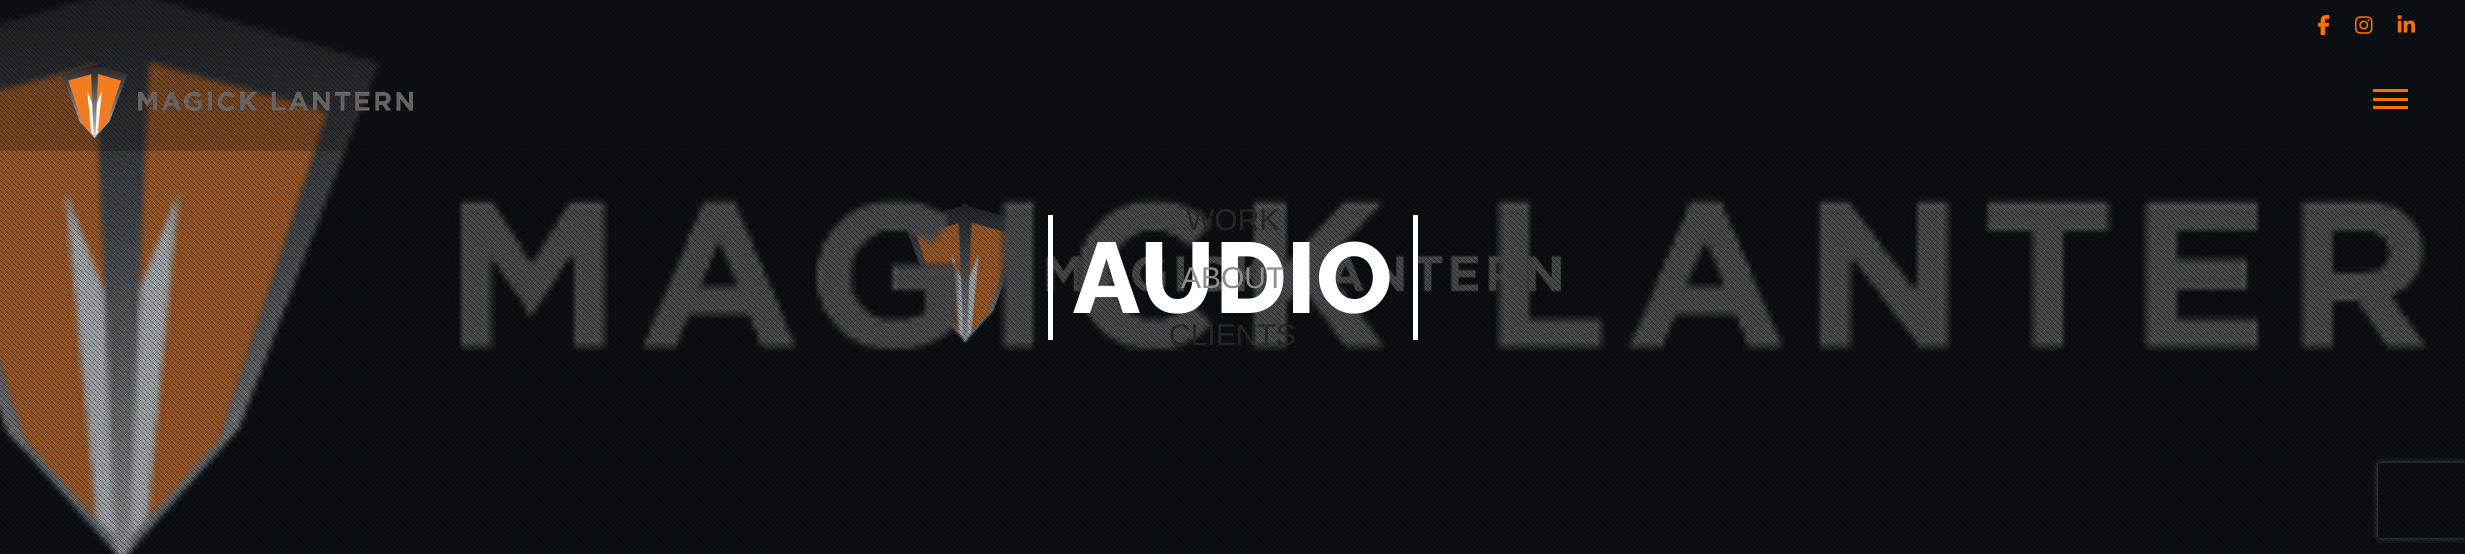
#include <cairo/cairo.h>
#include <math.h>
#include <stddef.h>

typedef struct { double x, y, w, h; unsigned color; } box_t;
static cairo_t *cr;

static void rgb(unsigned color)
{
	cairo_set_source_rgb(cr, (color >> 16) / 255.0, (color >> 8 & 255) / 255.0, (color & 255) / 255.0);
}

static void rrect(double x, double y, double w, double h, double r)
{
	cairo_new_sub_path(cr);
	cairo_arc(cr, x + w - r, y + h - r, r, 0, M_PI / 2);
	cairo_arc(cr, x + r, y + h - r, r, M_PI / 2, M_PI);
	cairo_arc(cr, x + r, y + r, r, M_PI, 1.5 * M_PI);
	cairo_arc(cr, x + w - r, y + r, r, 1.5 * M_PI, 2 * M_PI);
	cairo_close_path(cr);
}

static void soft_shadow(double x, double y, double w, double h, double r, double blur, double alpha)
{
	cairo_push_group_with_content(cr, CAIRO_CONTENT_ALPHA);
	cairo_set_operator(cr, CAIRO_OPERATOR_SOURCE);
	for (int i = 15; i >= -15 && fmin(w, h) + blur * i / 3 > 0; i -= 2) {
		double e = blur * i / 6;
		cairo_set_source_rgba(cr, 0, 0, 0, alpha * erfc((i - 1) / 8.5) / 2);
		rrect(x - e, y - e, w + 2 * e, h + 2 * e, fmax(0, fmin(r + e + blur * .6, fmin(w, h) / 2 + e)));
		cairo_fill(cr);
	}
	cairo_pattern_t *soft = cairo_pop_group(cr);
	cairo_mask(cr, soft);
	cairo_pattern_destroy(soft);
}

static void image(const char *path, double x, double y, double w, double h)
{
	cairo_surface_t *image = cairo_image_surface_create_from_png(path);
	cairo_save(cr);
	cairo_set_source_surface(cr, image, x, y);
	cairo_rectangle(cr, x, y, w, h);
	cairo_fill(cr);
	cairo_restore(cr);
	cairo_surface_destroy(image);
}

int main(void) {
	cairo_surface_t *surface = cairo_image_surface_create(CAIRO_FORMAT_RGB24, 2465, 554);
	cr = cairo_create(surface);
	cairo_font_options_t *options = cairo_font_options_create();
	cairo_font_options_set_hint_metrics(options, CAIRO_HINT_METRICS_OFF);
	cairo_font_options_set_hint_style(options, CAIRO_HINT_STYLE_NONE);
	cairo_set_font_options(cr, options);
	cairo_set_miter_limit(cr, 4);
	rgb(0xffffff);
	cairo_paint(cr);
	image("img/5.png", 0, 0, 2465, 554);
	image("img/6.png", 0, 0, 2465, 554);
	cairo_save(cr);
	cairo_set_fill_rule(cr, CAIRO_FILL_RULE_EVEN_ODD);
	cairo_new_path(cr);
	cairo_move_to(cr, 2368, 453);
	cairo_line_to(cr, 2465, 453);
	cairo_line_to(cr, 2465, 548);
	cairo_line_to(cr, 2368, 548);
	cairo_close_path(cr);
	cairo_move_to(cr, 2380.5, 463);
	cairo_line_to(cr, 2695.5, 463);
	cairo_curve_to(cr, 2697, 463, 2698, 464, 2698, 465.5);
	cairo_line_to(cr, 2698, 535.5);
	cairo_curve_to(cr, 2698, 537, 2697, 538, 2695.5, 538);
	cairo_line_to(cr, 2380.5, 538);
	cairo_curve_to(cr, 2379, 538, 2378, 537, 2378, 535.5);
	cairo_line_to(cr, 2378, 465.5);
	cairo_curve_to(cr, 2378, 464, 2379, 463, 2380.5, 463);
	cairo_close_path(cr);
	cairo_clip(cr);
	rgb(0x676c72);
	soft_shadow(2378, 463, 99, 75, 2.5, 3, 1);
	cairo_restore(cr);
	image("img/7.png", 0, 0, 2465, 554);
	cairo_set_source_rgba(cr, 0.075, 0.078, 0.086, 0.25);
	cairo_rectangle(cr, 0, 0, 2465, 151);
	cairo_fill(cr);
	image("img/1.png", 2318, 15, 12, 20);
	image("img/2.png", 2355, 16, 18, 18);
	image("img/3.png", 2397, 15, 18, 18);
	image("img/4.png", 61, 64, 353, 75);
	{
		static const box_t items[] = {
			{2373, 98, 35, 3, 0xff6e00},
			{2373, 89, 35, 3, 0xff6e00},
			{2373, 106, 35, 3, 0xff6e00},
			{1413, 215, 5, 125, 0xffffff},
			{1048, 215, 5, 125, 0xffffff},
		};
		for (size_t i = 0; i < sizeof items / sizeof *items; i++) {
			rgb(items[i].color);
			cairo_rectangle(cr, items[i].x, items[i].y, items[i].w, items[i].h);
			cairo_fill(cr);
		}
	}
	cairo_select_font_face(cr, "Liberation Sans", CAIRO_FONT_SLANT_NORMAL, CAIRO_FONT_WEIGHT_NORMAL);
	cairo_set_font_size(cr, 30);
	rgb(0x232629);
	cairo_move_to(cr, 1186, 230);
	cairo_show_text(cr, "WORK");
	cairo_move_to(cr, 1169, 345);
	cairo_show_text(cr, "CLIENTS");
	cairo_select_font_face(cr, "Raleway ExtraBold", CAIRO_FONT_SLANT_NORMAL, CAIRO_FONT_WEIGHT_NORMAL);
	cairo_set_font_size(cr, 100);
	rgb(0xffffff);
	cairo_move_to(cr, 1073, 313);
	cairo_show_text(cr, "AUDIO");
	cairo_select_font_face(cr, "Liberation Sans", CAIRO_FONT_SLANT_NORMAL, CAIRO_FONT_WEIGHT_NORMAL);
	cairo_set_font_size(cr, 30);
	rgb(0x8c8d8f);
	cairo_move_to(cr, 1181, 288);
	cairo_show_text(cr, "ABOUT");
	cairo_surface_write_to_png(surface, "page.png");
	cairo_font_options_destroy(options);
	cairo_destroy(cr);
	cairo_surface_destroy(surface);
	return 0;
}
